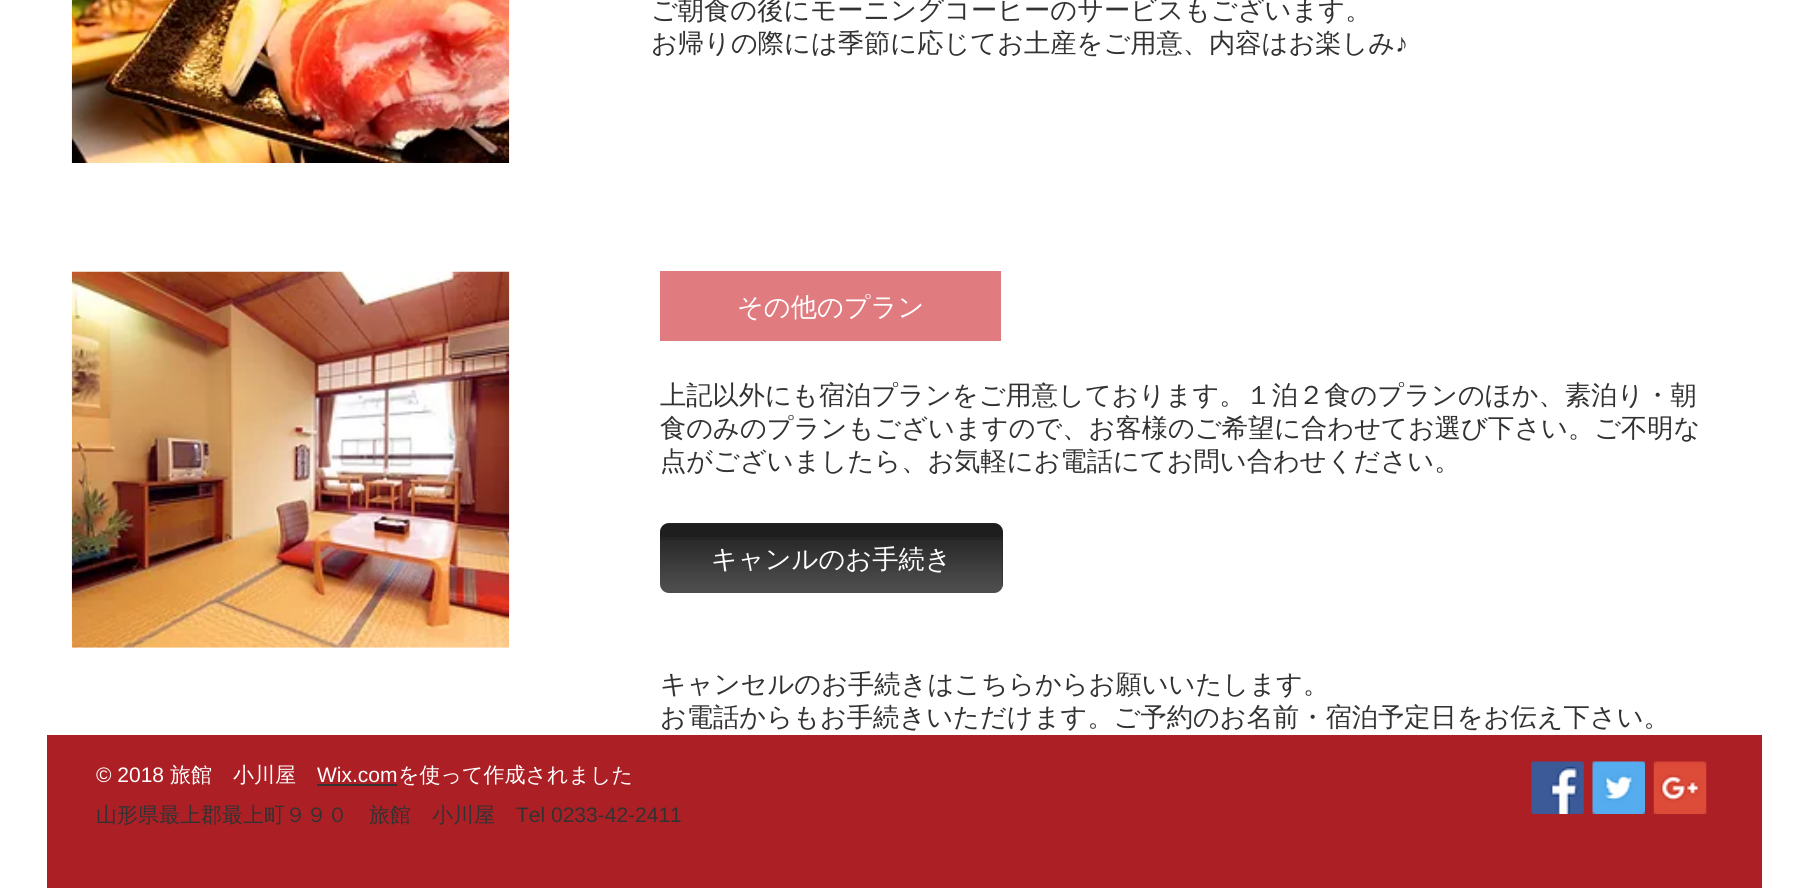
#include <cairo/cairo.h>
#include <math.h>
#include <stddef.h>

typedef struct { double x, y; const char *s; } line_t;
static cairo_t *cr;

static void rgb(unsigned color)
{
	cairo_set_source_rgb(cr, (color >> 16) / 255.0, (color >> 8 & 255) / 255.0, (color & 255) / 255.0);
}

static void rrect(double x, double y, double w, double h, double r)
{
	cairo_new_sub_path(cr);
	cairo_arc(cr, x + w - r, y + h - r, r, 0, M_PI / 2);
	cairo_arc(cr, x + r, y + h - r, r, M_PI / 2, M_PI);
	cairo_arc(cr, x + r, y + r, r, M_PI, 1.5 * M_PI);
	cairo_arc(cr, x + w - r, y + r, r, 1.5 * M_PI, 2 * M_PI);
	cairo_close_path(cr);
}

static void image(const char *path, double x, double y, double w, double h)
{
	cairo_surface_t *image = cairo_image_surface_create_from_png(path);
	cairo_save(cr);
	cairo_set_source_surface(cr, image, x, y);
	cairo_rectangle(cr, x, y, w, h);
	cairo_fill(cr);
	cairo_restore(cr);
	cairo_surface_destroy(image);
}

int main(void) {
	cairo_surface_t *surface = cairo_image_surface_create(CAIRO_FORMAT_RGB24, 1809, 888);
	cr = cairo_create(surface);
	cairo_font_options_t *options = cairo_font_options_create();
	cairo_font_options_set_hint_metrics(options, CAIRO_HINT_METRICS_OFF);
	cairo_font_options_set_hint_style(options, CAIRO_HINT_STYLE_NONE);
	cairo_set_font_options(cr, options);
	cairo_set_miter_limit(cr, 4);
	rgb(0xffffff);
	cairo_paint(cr);
	image("img/1.png", 71, 0, 439, 163);
	image("img/2.png", 71, 271, 439, 377);
	rgb(0xe07b7f);
	cairo_rectangle(cr, 660, 271, 341, 70);
	cairo_fill(cr);
	rgb(0x232323);
	rrect(660, 523, 343, 70, 9);
	cairo_fill(cr);
	image("img/3.png", 660, 524, 343, 16);
	image("img/4.png", 660, 537, 343, 56);
	rgb(0xac1f25);
	cairo_rectangle(cr, 47, 735, 1715, 153);
	cairo_fill(cr);
	rgb(0x323232);
	cairo_rectangle(cr, 317, 784, 80, 2);
	cairo_fill(cr);
	image("img/5.png", 1531, 761, 53, 53);
	image("img/6.png", 1592, 761, 53, 53);
	image("img/7.png", 1653, 761, 54, 53);
	cairo_select_font_face(cr, "WenQuanYi Zen Hei Medium", CAIRO_FONT_SLANT_NORMAL, CAIRO_FONT_WEIGHT_NORMAL);
	cairo_set_font_size(cr, 26.25);
	cairo_move_to(cr, 651, 19);
	cairo_show_text(cr, "ご朝食の後にモーニングコーヒーのサービスもございます。");
	cairo_move_to(cr, 651, 52);
	cairo_show_text(cr, "お帰りの際には季節に応じてお土産をご用意、内容はお楽しみ");
	cairo_select_font_face(cr, "Liberation Sans", CAIRO_FONT_SLANT_NORMAL, CAIRO_FONT_WEIGHT_NORMAL);
	cairo_move_to(cr, 1395, 52);
	cairo_show_text(cr, "♪");
	cairo_select_font_face(cr, "WenQuanYi Zen Hei Medium", CAIRO_FONT_SLANT_NORMAL, CAIRO_FONT_WEIGHT_NORMAL);
	rgb(0xffffff);
	cairo_move_to(cr, 737, 316);
	cairo_show_text(cr, "その他のプラン");
	rgb(0x323232);
	{
		static const line_t items[] = {
			{660, 404, "上記以外にも宿泊プランをご用意しております。１泊２食のプランのほか、素泊り・朝"},
			{660, 437, "食のみのプランもございますので、お客様のご希望に合わせてお選び下さい。ご不明な"},
			{660, 470, "点がございましたら、お気軽にお電話にてお問い合わせください。"},
		};
		for (size_t i = 0; i < sizeof items / sizeof *items; i++) {
			cairo_move_to(cr, items[i].x, items[i].y);
			cairo_show_text(cr, items[i].s);
		}
	}
	rgb(0xffffff);
	cairo_move_to(cr, 711, 568);
	cairo_show_text(cr, "キャンルのお手続き");
	rgb(0x323232);
	cairo_move_to(cr, 660, 693);
	cairo_show_text(cr, "キャンセルのお手続きはこちらからお願いいたします。");
	cairo_move_to(cr, 660, 726);
	cairo_show_text(cr, "お電話からもお手続きいただけます。ご予約のお名前・宿泊予定日をお伝え下さい。");
	cairo_select_font_face(cr, "Liberation Sans", CAIRO_FONT_SLANT_NORMAL, CAIRO_FONT_WEIGHT_NORMAL);
	cairo_set_font_size(cr, 21);
	rgb(0xffffff);
	cairo_move_to(cr, 96, 782);
	cairo_show_text(cr, "© 2018");
	cairo_select_font_face(cr, "WenQuanYi Zen Hei Medium", CAIRO_FONT_SLANT_NORMAL, CAIRO_FONT_WEIGHT_NORMAL);
	cairo_move_to(cr, 170, 782);
	cairo_show_text(cr, "旅館　小川屋");
	cairo_select_font_face(cr, "Liberation Sans", CAIRO_FONT_SLANT_NORMAL, CAIRO_FONT_WEIGHT_NORMAL);
	cairo_move_to(cr, 317, 782);
	cairo_show_text(cr, "Wix.com");
	cairo_select_font_face(cr, "WenQuanYi Zen Hei Medium", CAIRO_FONT_SLANT_NORMAL, CAIRO_FONT_WEIGHT_NORMAL);
	cairo_move_to(cr, 398, 782);
	cairo_show_text(cr, "を使って作成されました");
	rgb(0x323232);
	cairo_move_to(cr, 96, 822);
	cairo_show_text(cr, "山形県最上郡最上町９９０　旅館　小川屋");
	cairo_select_font_face(cr, "Liberation Sans", CAIRO_FONT_SLANT_NORMAL, CAIRO_FONT_WEIGHT_NORMAL);
	cairo_move_to(cr, 516, 822);
	cairo_show_text(cr, "Tel 0233-42-2411");
	cairo_surface_write_to_png(surface, "page.png");
	cairo_font_options_destroy(options);
	cairo_destroy(cr);
	cairo_surface_destroy(surface);
	return 0;
}
